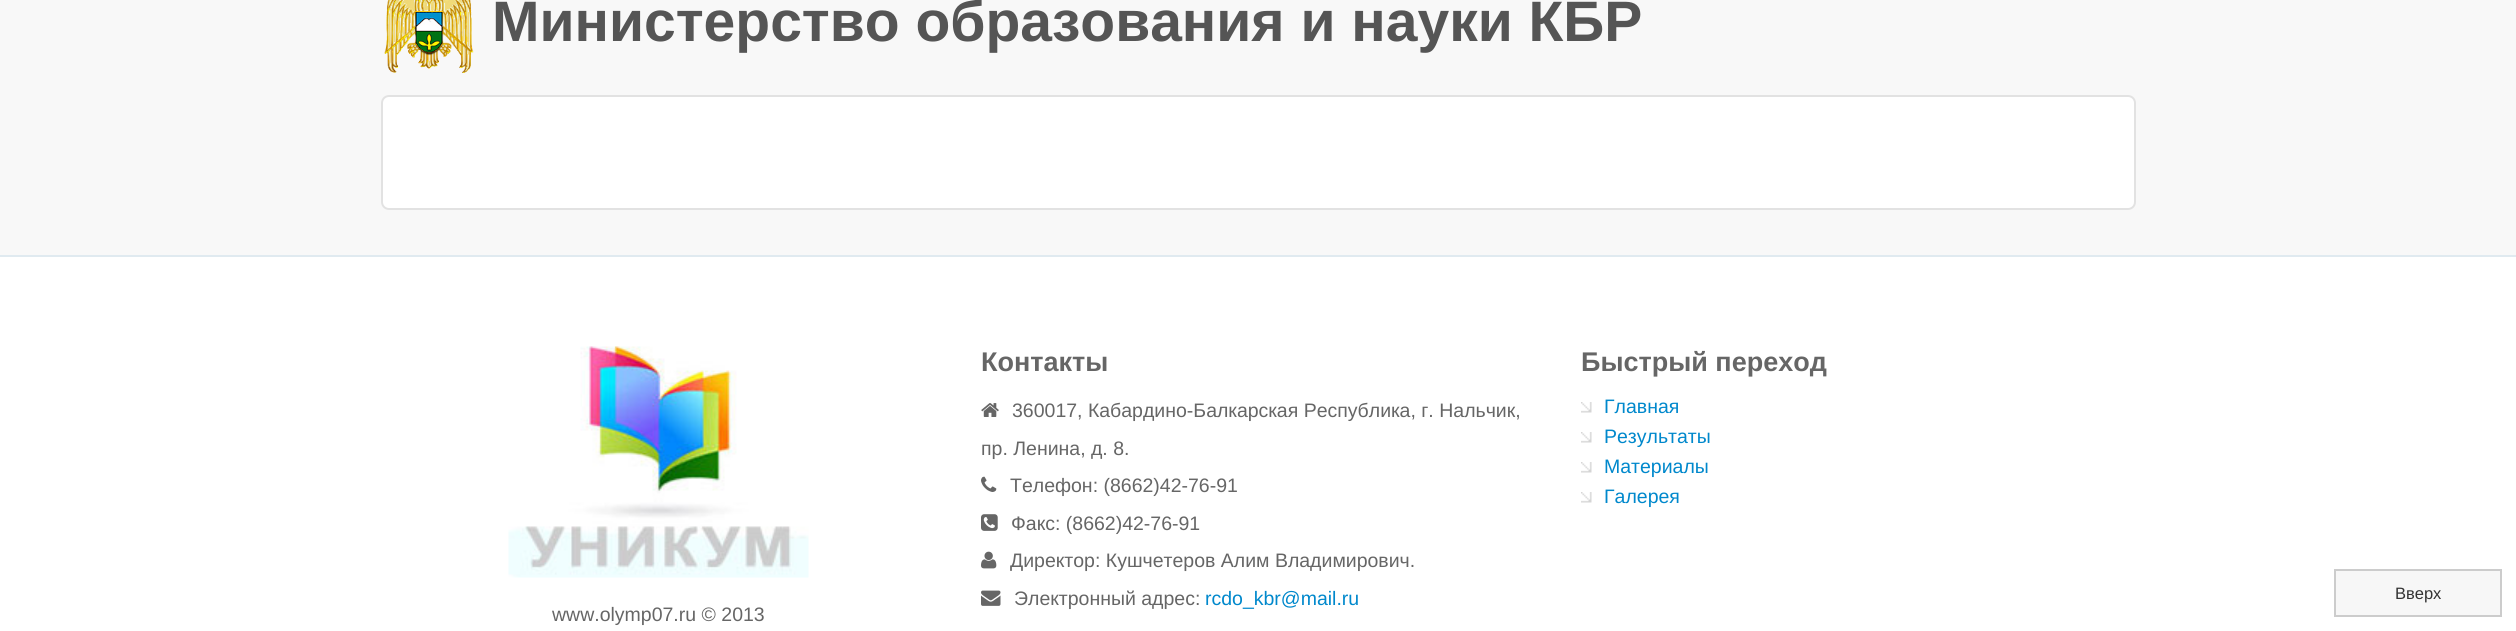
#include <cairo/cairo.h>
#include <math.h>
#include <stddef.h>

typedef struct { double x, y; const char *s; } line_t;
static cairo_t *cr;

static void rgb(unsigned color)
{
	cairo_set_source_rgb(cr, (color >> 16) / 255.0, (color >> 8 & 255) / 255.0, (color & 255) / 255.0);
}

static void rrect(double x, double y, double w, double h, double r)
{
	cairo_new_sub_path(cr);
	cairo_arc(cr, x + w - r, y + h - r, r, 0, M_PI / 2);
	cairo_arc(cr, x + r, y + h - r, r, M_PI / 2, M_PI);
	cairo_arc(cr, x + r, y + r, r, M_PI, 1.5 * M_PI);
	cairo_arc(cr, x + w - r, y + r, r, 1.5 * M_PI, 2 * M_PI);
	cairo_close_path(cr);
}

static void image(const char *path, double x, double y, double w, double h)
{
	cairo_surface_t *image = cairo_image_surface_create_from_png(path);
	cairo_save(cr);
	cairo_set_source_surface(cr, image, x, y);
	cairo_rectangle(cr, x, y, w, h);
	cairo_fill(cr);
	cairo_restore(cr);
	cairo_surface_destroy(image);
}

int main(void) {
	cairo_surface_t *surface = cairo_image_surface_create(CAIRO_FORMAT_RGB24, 2516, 631);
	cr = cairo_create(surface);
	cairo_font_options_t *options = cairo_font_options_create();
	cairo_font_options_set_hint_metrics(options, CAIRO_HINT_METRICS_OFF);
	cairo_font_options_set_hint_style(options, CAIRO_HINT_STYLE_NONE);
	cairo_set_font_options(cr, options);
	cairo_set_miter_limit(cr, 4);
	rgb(0xf8f8f8);
	cairo_paint(cr);
	image("img/1.png", 384, 0, 90, 73);
	rgb(0xffffff);
	rrect(382, 96, 1753, 113, 7);
	cairo_fill_preserve(cr);
	rgb(0xe2e2e2);
	cairo_stroke(cr);
	rgb(0xffffff);
	cairo_rectangle(cr, 0, 257, 2516, 374);
	cairo_fill(cr);
	rgb(0xe0eaf0);
	cairo_rectangle(cr, 0, 255, 2516, 2);
	cairo_fill(cr);
	image("img/2.png", 981, 403, 18, 14);
	image("img/3.png", 981, 476, 16, 16);
	image("img/4.png", 981, 514, 17, 17);
	image("img/5.png", 981, 551, 16, 18);
	image("img/6.png", 981, 590, 20, 16);
	image("img/7.png", 1581, 402, 11, 11);
	image("img/7.png", 1581, 432, 11, 11);
	image("img/7.png", 1581, 462, 11, 11);
	image("img/7.png", 1581, 492, 11, 11);
	image("img/8.png", 508, 346, 301, 232);
	rgb(0xf7f7f7);
	cairo_rectangle(cr, 2335, 570, 166, 46);
	cairo_fill_preserve(cr);
	rgb(0xcccccc);
	cairo_stroke(cr);
	cairo_select_font_face(cr, "Liberation Sans", CAIRO_FONT_SLANT_NORMAL, CAIRO_FONT_WEIGHT_BOLD);
	cairo_set_font_size(cr, 57);
	rgb(0x555555);
	cairo_move_to(cr, 492, 41);
	cairo_show_text(cr, "Министерство образования и науки КБР");
	cairo_set_font_size(cr, 27);
	rgb(0x666666);
	cairo_move_to(cr, 981, 371);
	cairo_show_text(cr, "Контакты");
	cairo_select_font_face(cr, "Liberation Sans", CAIRO_FONT_SLANT_NORMAL, CAIRO_FONT_WEIGHT_NORMAL);
	cairo_set_font_size(cr, 19.5);
	{
		static const line_t items[] = {
			{1012, 417, "360017, Кабардино-Балкарская Республика, г. Нальчик,"},
			{981, 455, "пр. Ленина, д. 8."},
			{1010, 492, "Телефон: (8662)42-76-91"},
			{1011, 530, "Факс: (8662)42-76-91"},
			{1010, 567, "Директор: Кушчетеров Алим Владимирович."},
			{1014, 605, "Электронный адрес:"},
		};
		for (size_t i = 0; i < sizeof items / sizeof *items; i++) {
			cairo_move_to(cr, items[i].x, items[i].y);
			cairo_show_text(cr, items[i].s);
		}
	}
	rgb(0x0088cc);
	cairo_move_to(cr, 1205, 605);
	cairo_show_text(cr, "rcdo_kbr@mail.ru");
	cairo_select_font_face(cr, "Liberation Sans", CAIRO_FONT_SLANT_NORMAL, CAIRO_FONT_WEIGHT_BOLD);
	cairo_set_font_size(cr, 27);
	rgb(0x666666);
	cairo_move_to(cr, 1581, 371);
	cairo_show_text(cr, "Быстрый переход");
	cairo_select_font_face(cr, "Liberation Sans", CAIRO_FONT_SLANT_NORMAL, CAIRO_FONT_WEIGHT_NORMAL);
	cairo_set_font_size(cr, 19.5);
	rgb(0x0088cc);
	{
		static const line_t items[] = {
			{1604, 413, "Главная"},
			{1604, 443, "Результаты"},
			{1604, 473, "Материалы"},
			{1604, 503, "Галерея"},
		};
		for (size_t i = 0; i < sizeof items / sizeof *items; i++) {
			cairo_move_to(cr, items[i].x, items[i].y);
			cairo_show_text(cr, items[i].s);
		}
	}
	rgb(0x666666);
	cairo_move_to(cr, 552, 621);
	cairo_show_text(cr, "www.olymp07.ru © 2013");
	cairo_set_font_size(cr, 16.5);
	rgb(0x333333);
	cairo_move_to(cr, 2395, 599);
	cairo_show_text(cr, "Вверх");
	cairo_surface_write_to_png(surface, "page.png");
	cairo_font_options_destroy(options);
	cairo_destroy(cr);
	cairo_surface_destroy(surface);
	return 0;
}
